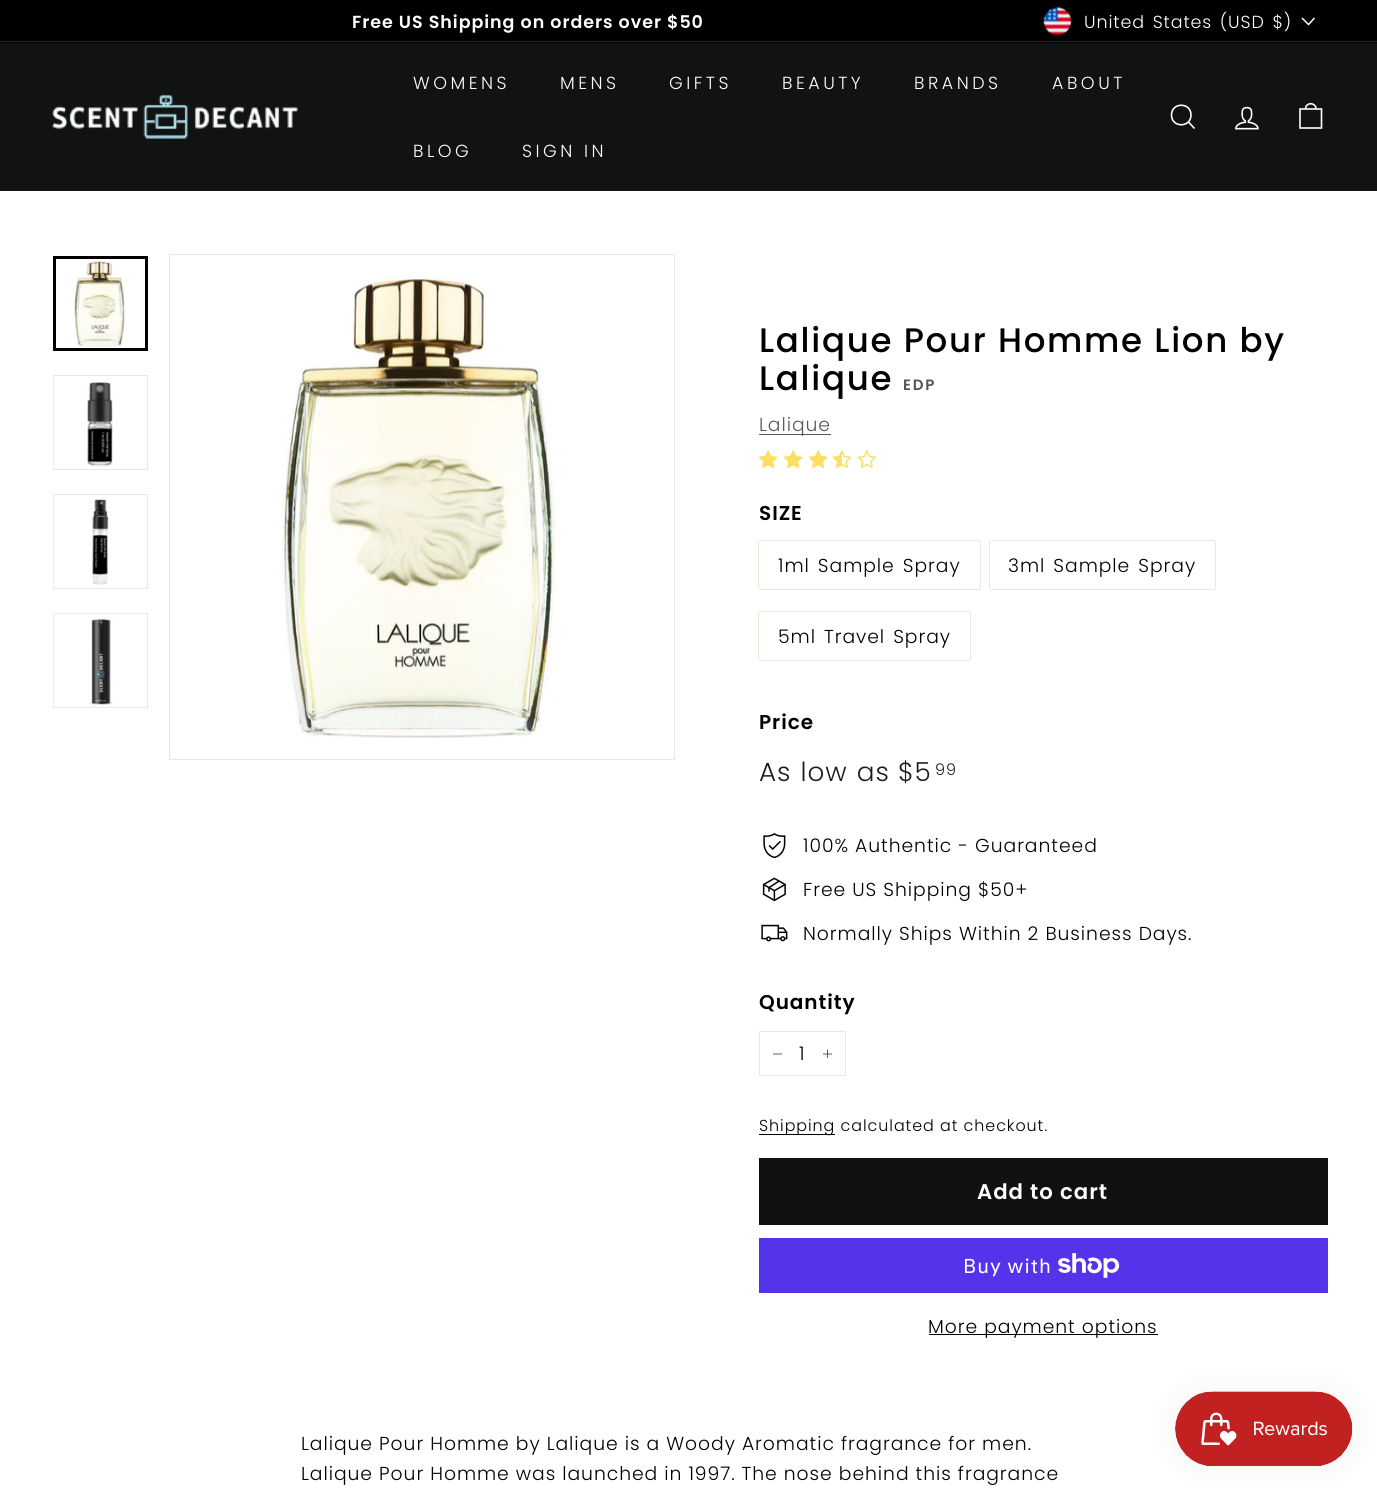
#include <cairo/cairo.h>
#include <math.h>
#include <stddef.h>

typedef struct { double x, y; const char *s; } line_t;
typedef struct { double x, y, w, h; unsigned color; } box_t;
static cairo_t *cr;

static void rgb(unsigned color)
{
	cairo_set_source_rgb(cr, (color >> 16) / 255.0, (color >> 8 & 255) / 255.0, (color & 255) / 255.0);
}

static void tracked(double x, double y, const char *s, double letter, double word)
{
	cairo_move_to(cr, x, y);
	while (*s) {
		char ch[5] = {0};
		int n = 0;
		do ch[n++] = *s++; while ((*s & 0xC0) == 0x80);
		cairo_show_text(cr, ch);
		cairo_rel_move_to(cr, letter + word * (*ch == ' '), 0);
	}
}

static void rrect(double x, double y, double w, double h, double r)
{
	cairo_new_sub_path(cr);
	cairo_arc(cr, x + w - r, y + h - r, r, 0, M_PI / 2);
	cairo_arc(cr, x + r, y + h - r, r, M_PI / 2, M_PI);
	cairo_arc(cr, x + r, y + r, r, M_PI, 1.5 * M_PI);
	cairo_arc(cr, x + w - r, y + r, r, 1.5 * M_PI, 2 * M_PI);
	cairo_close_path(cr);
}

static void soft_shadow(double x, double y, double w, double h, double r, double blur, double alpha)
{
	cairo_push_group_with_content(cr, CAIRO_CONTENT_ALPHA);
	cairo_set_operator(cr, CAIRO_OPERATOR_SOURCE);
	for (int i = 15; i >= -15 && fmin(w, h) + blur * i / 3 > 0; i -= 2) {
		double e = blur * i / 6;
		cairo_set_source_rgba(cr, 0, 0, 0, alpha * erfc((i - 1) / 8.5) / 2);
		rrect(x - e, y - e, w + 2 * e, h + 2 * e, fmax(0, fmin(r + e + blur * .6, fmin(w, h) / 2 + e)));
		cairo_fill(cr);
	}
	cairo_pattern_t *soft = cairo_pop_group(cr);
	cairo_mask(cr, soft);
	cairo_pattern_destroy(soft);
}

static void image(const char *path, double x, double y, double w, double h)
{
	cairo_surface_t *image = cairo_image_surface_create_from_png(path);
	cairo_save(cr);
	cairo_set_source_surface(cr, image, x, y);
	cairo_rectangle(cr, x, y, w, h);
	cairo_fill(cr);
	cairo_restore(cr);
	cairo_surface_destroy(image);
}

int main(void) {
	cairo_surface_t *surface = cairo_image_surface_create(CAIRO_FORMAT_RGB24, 1377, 1491);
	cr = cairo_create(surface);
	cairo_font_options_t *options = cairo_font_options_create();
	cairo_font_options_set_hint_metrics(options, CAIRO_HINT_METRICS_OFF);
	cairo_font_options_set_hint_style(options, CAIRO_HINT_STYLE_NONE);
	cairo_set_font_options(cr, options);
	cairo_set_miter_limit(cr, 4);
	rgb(0xffffff);
	cairo_paint(cr);
	rgb(0x000000);
	cairo_rectangle(cr, 0, 0, 1377, 43);
	cairo_fill(cr);
	image("img/1.png", 1043, 7, 29, 29);
	cairo_new_path(cr);
	cairo_move_to(cr, 1302, 18);
	cairo_line_to(cr, 1308.5, 24.5);
	cairo_line_to(cr, 1314.5, 18);
	rgb(0xffffff);
	cairo_set_line_width(cr, 1.5);
	cairo_stroke(cr);
	rgb(0x262626);
	cairo_rectangle(cr, 0, 41, 1377, 1);
	cairo_fill(cr);
	rgb(0x111212);
	cairo_rectangle(cr, 0, 43, 1377, 148);
	cairo_fill(cr);
	image("img/2.png", 52, 94, 246, 45);
	cairo_new_path(cr);
	cairo_move_to(cr, 1191, 115);
	cairo_curve_to(cr, 1191, 128, 1171.5, 128, 1171.5, 115);
	cairo_curve_to(cr, 1171.5, 102, 1191, 102, 1191, 115);
	cairo_close_path(cr);
	cairo_move_to(cr, 1194.5, 128.5);
	cairo_line_to(cr, 1188.5, 122);
	rgb(0xffffff);
	cairo_set_line_width(cr, 1.6);
	cairo_stroke(cr);
	image("img/3.png", 1235, 106, 24, 24);
	cairo_new_path(cr);
	cairo_move_to(cr, 1305.5, 109);
	cairo_curve_to(cr, 1305.5, 102, 1316, 102, 1316, 109);
	cairo_move_to(cr, 1300, 109);
	cairo_line_to(cr, 1321.5, 109);
	cairo_line_to(cr, 1321.5, 128);
	cairo_line_to(cr, 1300, 128);
	cairo_close_path(cr);
	cairo_stroke(cr);
	image("img/4.png", 56, 259, 89, 89);
	cairo_rectangle(cr, 54.5, 257.5, 92, 92);
	rgb(0x000000);
	cairo_set_line_width(cr, 3);
	cairo_stroke(cr);
	cairo_rectangle(cr, 53.5, 375.5, 94, 94);
	rgb(0xe8e8e1);
	cairo_set_line_width(cr, 1);
	cairo_stroke(cr);
	image("img/5.png", 53, 376, 60, 93);
	cairo_rectangle(cr, 53.5, 494.5, 94, 94);
	cairo_stroke(cr);
	image("img/6.png", 53, 495, 56, 92);
	cairo_rectangle(cr, 53.5, 613.5, 94, 94);
	cairo_stroke(cr);
	image("img/7.png", 53, 613, 93, 93);
	cairo_rectangle(cr, 169.5, 254.5, 505, 505);
	cairo_stroke(cr);
	image("img/8.png", 282, 277, 275, 462);
	rgb(0x595959);
	cairo_rectangle(cr, 759, 434, 72, 1);
	cairo_fill(cr);
	image("img/9.png", 758, 450, 20, 19);
	image("img/9.png", 783, 450, 20, 19);
	image("img/9.png", 808, 450, 20, 19);
	image("img/10.png", 832, 450, 20, 19);
	image("img/11.png", 857, 450, 20, 19);
	rrect(758.5, 540.5, 222, 49, 2);
	rgb(0xe8e8e1);
	cairo_stroke(cr);
	rgb(0xffffff);
	rrect(759, 541, 221, 48, 1);
	cairo_fill(cr);
	rrect(989.5, 540.5, 226, 49, 2);
	rgb(0xe8e8e1);
	cairo_stroke(cr);
	rgb(0xffffff);
	rrect(990, 541, 225, 48, 1);
	cairo_fill(cr);
	rrect(758.5, 611.5, 212, 49, 2);
	rgb(0xe8e8e1);
	cairo_stroke(cr);
	rgb(0xffffff);
	rrect(759, 613, 211, 47, 1);
	cairo_fill(cr);
	image("img/12.png", 763, 833, 23, 26);
	image("img/13.png", 762, 877, 24, 25);
	image("img/14.png", 761, 924, 27, 18);
	cairo_rectangle(cr, 759.5, 1031.5, 86, 44);
	rgb(0xe8e8e1);
	cairo_stroke(cr);
	cairo_new_path(cr);
	cairo_move_to(cr, 782, 1054);
	cairo_line_to(cr, 773, 1054);
	cairo_move_to(cr, 827.5, 1049.5);
	cairo_line_to(cr, 827.5, 1058);
	cairo_move_to(cr, 832, 1054);
	cairo_line_to(cr, 823, 1054);
	rgb(0x000000);
	cairo_set_line_width(cr, 0.6);
	cairo_stroke(cr);
	{
		static const box_t items[] = {
			{759, 1134, 76, 1, 0x000000},
			{759, 1158, 569, 67, 0x111111},
			{759, 1238, 569, 55, 0x5433eb},
		};
		for (size_t i = 0; i < sizeof items / sizeof *items; i++) {
			rgb(items[i].color);
			cairo_rectangle(cr, items[i].x, items[i].y, items[i].w, items[i].h);
			cairo_fill(cr);
		}
	}
	image("img/15.png", 1058, 1253, 62, 25);
	rgb(0x000000);
	cairo_rectangle(cr, 929, 1334, 229, 1);
	cairo_fill(cr);
	rgb(0x000000);
	soft_shadow(1175, 1391, 178, 75, 37.5, 15.5, 0.05);
	image("img/16.png", 1175, 1391, 178, 75);
	cairo_select_font_face(cr, "Poppins SemiBold", CAIRO_FONT_SLANT_NORMAL, CAIRO_FONT_WEIGHT_NORMAL);
	cairo_set_font_size(cr, 17.5);
	rgb(0xffffff);
	tracked(352, 28, "Free US Shipping on orders over $50", 0.95, 0);
	cairo_select_font_face(cr, "Poppins Light", CAIRO_FONT_SLANT_NORMAL, CAIRO_FONT_WEIGHT_NORMAL);
	tracked(1084, 28, "United States (USD $)", 0.9, 2);
	{
		static const line_t items[] = {
			{413, 89, "WOMENS"},
			{560, 89, "MENS"},
			{669, 89, "GIFTS"},
			{782, 89, "BEAUTY"},
			{914, 89, "BRANDS"},
			{1052, 89, "ABOUT"},
			{413, 157, "BLOG"},
			{522, 157, "SIGN IN"},
		};
		for (size_t i = 0; i < sizeof items / sizeof *items; i++) {
			tracked(items[i].x, items[i].y, items[i].s, 3.5, 0);
		}
	}
	cairo_select_font_face(cr, "Poppins Medium", CAIRO_FONT_SLANT_NORMAL, CAIRO_FONT_WEIGHT_NORMAL);
	cairo_set_font_size(cr, 34);
	rgb(0x000000);
	tracked(759, 352, "Lalique Pour Homme Lion by", 1.7, 0);
	tracked(759, 390, "Lalique", 1.7, 0);
	cairo_select_font_face(cr, "Poppins SemiBold", CAIRO_FONT_SLANT_NORMAL, CAIRO_FONT_WEIGHT_NORMAL);
	cairo_set_font_size(cr, 15);
	rgb(0x535454);
	tracked(903, 390, "EDP", 1.7, 0);
	cairo_select_font_face(cr, "Poppins Light", CAIRO_FONT_SLANT_NORMAL, CAIRO_FONT_WEIGHT_NORMAL);
	cairo_set_font_size(cr, 18.75);
	rgb(0x595959);
	tracked(759, 431, "Lalique", 0.95, 0);
	cairo_select_font_face(cr, "Poppins SemiBold", CAIRO_FONT_SLANT_NORMAL, CAIRO_FONT_WEIGHT_NORMAL);
	cairo_set_font_size(cr, 20);
	rgb(0x000000);
	tracked(759, 520, "SIZE", 0.95, 0);
	cairo_select_font_face(cr, "Poppins Light", CAIRO_FONT_SLANT_NORMAL, CAIRO_FONT_WEIGHT_NORMAL);
	cairo_set_font_size(cr, 18.75);
	{
		static const line_t items[] = {
			{778, 572, "1ml Sample Spray"},
			{1008, 572, "3ml Sample Spray"},
			{778, 643, "5ml Travel Spray"},
		};
		for (size_t i = 0; i < sizeof items / sizeof *items; i++) {
			tracked(items[i].x, items[i].y, items[i].s, 0.95, 2);
		}
	}
	cairo_select_font_face(cr, "Poppins SemiBold", CAIRO_FONT_SLANT_NORMAL, CAIRO_FONT_WEIGHT_NORMAL);
	cairo_set_font_size(cr, 20);
	tracked(759, 729, "Price", 0.95, 0);
	cairo_select_font_face(cr, "Poppins Light", CAIRO_FONT_SLANT_NORMAL, CAIRO_FONT_WEIGHT_NORMAL);
	cairo_set_font_size(cr, 26.25);
	rgb(0x1c1d1d);
	tracked(759, 781, "As low as", 0.95, 1);
	tracked(898, 781, "$5", 0.95, 0);
	cairo_set_font_size(cr, 16);
	tracked(935, 775, "99", 0.95, 0);
	cairo_set_font_size(cr, 18.75);
	rgb(0x000000);
	{
		static const line_t items[] = {
			{803, 852, "100% Authentic - Guaranteed"},
			{803, 896, "Free US Shipping $50+"},
			{803, 940, "Normally Ships Within 2 Business Days."},
		};
		for (size_t i = 0; i < sizeof items / sizeof *items; i++) {
			tracked(items[i].x, items[i].y, items[i].s, 0.95, 0);
		}
	}
	cairo_select_font_face(cr, "Poppins SemiBold", CAIRO_FONT_SLANT_NORMAL, CAIRO_FONT_WEIGHT_NORMAL);
	cairo_set_font_size(cr, 20);
	tracked(759, 1009, "Quantity", 0.95, 0);
	cairo_select_font_face(cr, "Poppins Light", CAIRO_FONT_SLANT_NORMAL, CAIRO_FONT_WEIGHT_NORMAL);
	cairo_set_font_size(cr, 18.75);
	tracked(799, 1060, "1", 0.95, 0);
	cairo_set_font_size(cr, 15.9);
	tracked(759, 1131, "Shipping calculated at checkout.", 0.95, 0);
	cairo_select_font_face(cr, "Poppins SemiBold", CAIRO_FONT_SLANT_NORMAL, CAIRO_FONT_WEIGHT_NORMAL);
	cairo_set_font_size(cr, 21.25);
	rgb(0xffffff);
	tracked(977, 1199, "Add to cart", 1, 0);
	cairo_select_font_face(cr, "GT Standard", CAIRO_FONT_SLANT_NORMAL, CAIRO_FONT_WEIGHT_NORMAL);
	cairo_set_font_size(cr, 20);
	tracked(963, 1273, "Buy with", 0.95, 0);
	cairo_select_font_face(cr, "Poppins Light", CAIRO_FONT_SLANT_NORMAL, CAIRO_FONT_WEIGHT_NORMAL);
	cairo_set_font_size(cr, 18.75);
	rgb(0x000000);
	{
		static const line_t items[] = {
			{928, 1333, "More payment options"},
			{301, 1450, "Lalique Pour Homme by Lalique is a Woody Aromatic fragrance for men."},
			{301, 1480, "Lalique Pour Homme was launched in 1997. The nose behind this fragrance"},
		};
		for (size_t i = 0; i < sizeof items / sizeof *items; i++) {
			tracked(items[i].x, items[i].y, items[i].s, 0.95, 0);
		}
	}
	cairo_surface_write_to_png(surface, "page.png");
	cairo_font_options_destroy(options);
	cairo_destroy(cr);
	cairo_surface_destroy(surface);
	return 0;
}
